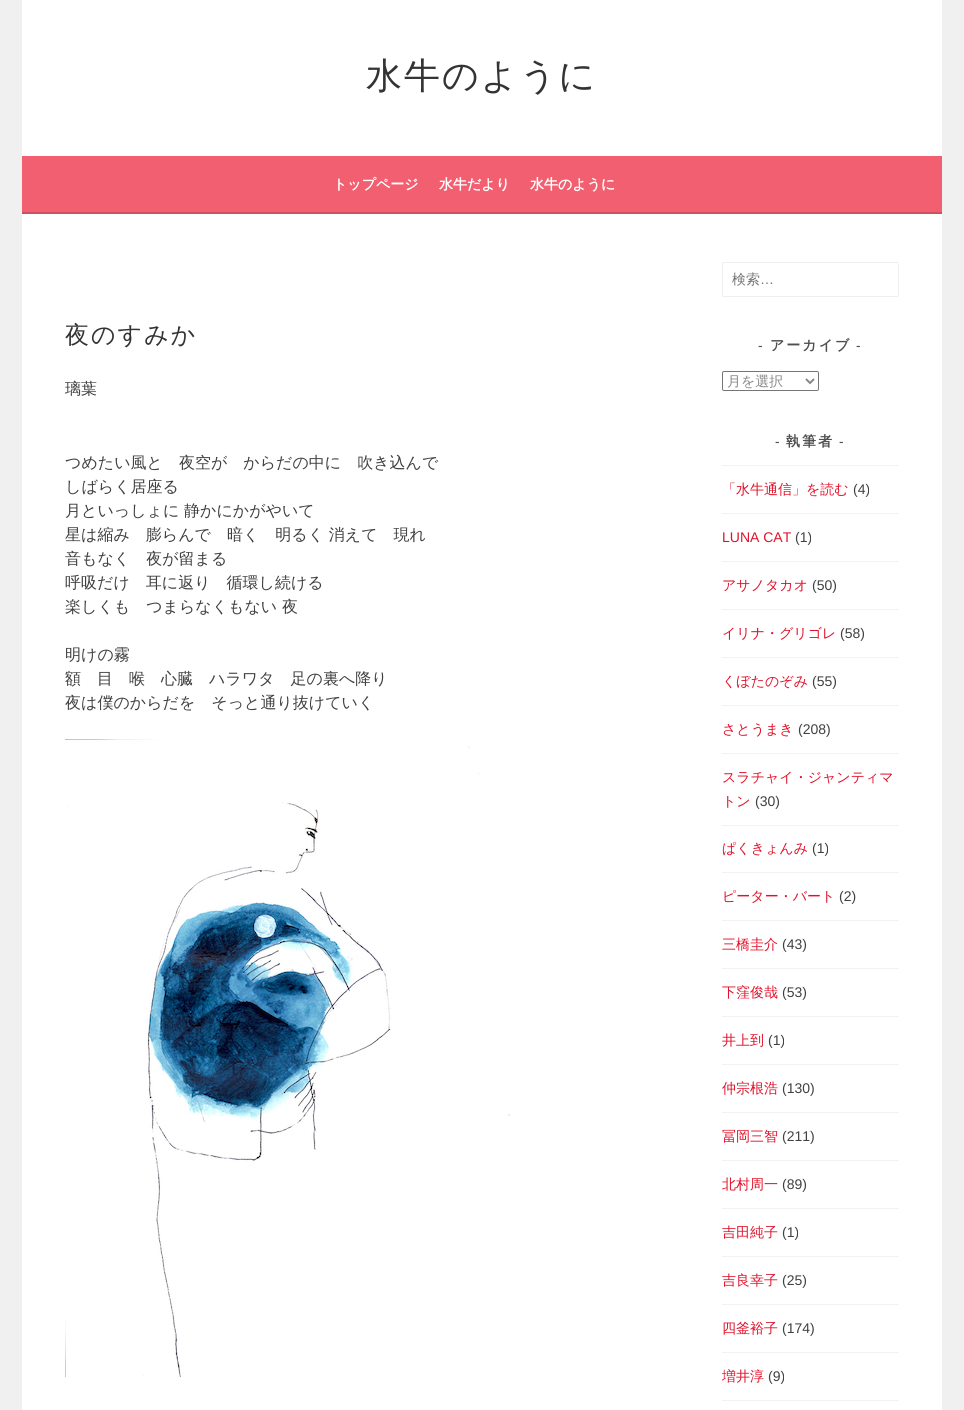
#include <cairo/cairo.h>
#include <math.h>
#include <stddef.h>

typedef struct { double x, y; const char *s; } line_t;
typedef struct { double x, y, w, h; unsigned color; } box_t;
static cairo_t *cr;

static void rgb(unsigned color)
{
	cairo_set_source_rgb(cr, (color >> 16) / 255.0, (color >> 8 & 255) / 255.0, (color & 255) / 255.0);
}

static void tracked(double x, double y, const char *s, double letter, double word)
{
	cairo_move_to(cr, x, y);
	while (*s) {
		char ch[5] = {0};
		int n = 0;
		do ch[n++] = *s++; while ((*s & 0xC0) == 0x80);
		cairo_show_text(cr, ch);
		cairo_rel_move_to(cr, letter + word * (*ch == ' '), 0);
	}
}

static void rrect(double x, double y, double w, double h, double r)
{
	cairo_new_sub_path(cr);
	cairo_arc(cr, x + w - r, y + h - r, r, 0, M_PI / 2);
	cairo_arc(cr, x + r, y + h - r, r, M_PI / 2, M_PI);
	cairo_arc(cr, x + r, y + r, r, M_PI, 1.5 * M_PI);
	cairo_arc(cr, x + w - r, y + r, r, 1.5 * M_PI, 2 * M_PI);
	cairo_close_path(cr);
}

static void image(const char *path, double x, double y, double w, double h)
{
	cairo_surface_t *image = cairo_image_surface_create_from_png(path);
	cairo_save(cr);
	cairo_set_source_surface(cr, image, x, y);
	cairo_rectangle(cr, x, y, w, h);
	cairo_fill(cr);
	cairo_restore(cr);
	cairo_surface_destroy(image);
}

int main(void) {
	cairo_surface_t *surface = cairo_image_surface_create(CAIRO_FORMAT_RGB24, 964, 1410);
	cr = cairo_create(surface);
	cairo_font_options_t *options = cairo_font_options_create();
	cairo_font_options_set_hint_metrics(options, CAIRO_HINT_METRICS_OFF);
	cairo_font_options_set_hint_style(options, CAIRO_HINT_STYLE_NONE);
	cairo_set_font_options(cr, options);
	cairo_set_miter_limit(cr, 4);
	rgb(0xf0f0f0);
	cairo_paint(cr);
	{
		static const box_t items[] = {
			{22, 0, 920, 156, 0xffffff},
			{22, 156, 920, 56, 0xf25f70},
			{22, 212, 920, 2, 0xce515f},
			{22, 214, 920, 1196, 0xffffff},
		};
		for (size_t i = 0; i < sizeof items / sizeof *items; i++) {
			rgb(items[i].color);
			cairo_rectangle(cr, items[i].x, items[i].y, items[i].w, items[i].h);
			cairo_fill(cr);
		}
	}
	image("img/1.png", 65, 739, 445, 638);
	rrect(722.5, 262.5, 176, 34, 1.5);
	rgb(0xeeeeee);
	cairo_set_line_width(cr, 1);
	cairo_stroke(cr);
	rrect(722.5, 371.5, 96, 19, 1.5);
	rgb(0x767676);
	cairo_stroke(cr);
	cairo_new_path(cr);
	cairo_move_to(cr, 806, 379);
	cairo_line_to(cr, 810, 383);
	cairo_line_to(cr, 814, 379);
	rgb(0x888888);
	cairo_set_line_width(cr, 2);
	cairo_stroke(cr);
	{
		static const box_t items[] = {
			{722, 465, 177, 1, 0xf2f2f2},
			{722, 513, 177, 1, 0xf2f2f2},
			{722, 561, 177, 1, 0xf2f2f2},
			{722, 609, 177, 1, 0xf2f2f2},
			{722, 657, 177, 1, 0xf2f2f2},
			{722, 705, 177, 1, 0xf2f2f2},
			{722, 753, 177, 1, 0xf2f2f2},
			{722, 825, 177, 1, 0xf2f2f2},
			{722, 872, 177, 1, 0xf2f2f2},
			{722, 920, 177, 1, 0xf2f2f2},
			{722, 968, 177, 1, 0xf2f2f2},
			{722, 1016, 177, 1, 0xf2f2f2},
			{722, 1064, 177, 1, 0xf2f2f2},
			{722, 1112, 177, 1, 0xf2f2f2},
			{722, 1160, 177, 1, 0xf2f2f2},
			{722, 1208, 177, 1, 0xf2f2f2},
			{722, 1256, 177, 1, 0xf2f2f2},
			{722, 1304, 177, 1, 0xf2f2f2},
			{722, 1352, 177, 1, 0xf2f2f2},
			{722, 1400, 177, 1, 0xf2f2f2},
		};
		for (size_t i = 0; i < sizeof items / sizeof *items; i++) {
			rgb(items[i].color);
			cairo_rectangle(cr, items[i].x, items[i].y, items[i].w, items[i].h);
			cairo_fill(cr);
		}
	}
	cairo_select_font_face(cr, "WenQuanYi Zen Hei Medium", CAIRO_FONT_SLANT_NORMAL, CAIRO_FONT_WEIGHT_NORMAL);
	cairo_set_font_size(cr, 36);
	rgb(0x333333);
	tracked(366, 88, "水牛のように", 2, 0);
	cairo_select_font_face(cr, "WenQuanYi Zen Hei", CAIRO_FONT_SLANT_NORMAL, CAIRO_FONT_WEIGHT_BOLD);
	cairo_set_font_size(cr, 14);
	rgb(0xffffff);
	{
		static const line_t items[] = {
			{333, 189, "トップページ"},
			{439, 189, "水牛だより"},
			{530, 189, "水牛のように"},
		};
		for (size_t i = 0; i < sizeof items / sizeof *items; i++) {
			cairo_move_to(cr, items[i].x, items[i].y);
			cairo_show_text(cr, items[i].s);
		}
	}
	cairo_select_font_face(cr, "WenQuanYi Zen Hei Medium", CAIRO_FONT_SLANT_NORMAL, CAIRO_FONT_WEIGHT_NORMAL);
	cairo_set_font_size(cr, 24);
	rgb(0x333333);
	tracked(65, 343, "夜のすみか", 2, 0);
	cairo_set_font_size(cr, 16);
	rgb(0x404040);
	{
		static const line_t items[] = {
			{65, 394, "璃葉"},
			{65, 468, "つめたい風と　夜空が　からだの中に　吹き込んで"},
			{65, 492, "しばらく居座る"},
			{65, 516, "月といっしょに 静かにかがやいて"},
			{65, 540, "星は縮み　膨らんで　暗く　明るく 消えて　現れ"},
			{65, 564, "音もなく　夜が留まる"},
			{65, 588, "呼吸だけ　耳に返り　循環し続ける"},
			{65, 612, "楽しくも　つまらなくもない 夜"},
			{65, 660, "明けの霧"},
			{65, 684, "額　目　喉　心臓　ハラワタ　足の裏へ降り"},
			{65, 708, "夜は僕のからだを　そっと通り抜けていく"},
		};
		for (size_t i = 0; i < sizeof items / sizeof *items; i++) {
			cairo_move_to(cr, items[i].x, items[i].y);
			cairo_show_text(cr, items[i].s);
		}
	}
	cairo_set_font_size(cr, 14);
	rgb(0x757575);
	cairo_move_to(cr, 732, 284);
	cairo_show_text(cr, "検索");
	cairo_select_font_face(cr, "Liberation Sans", CAIRO_FONT_SLANT_NORMAL, CAIRO_FONT_WEIGHT_NORMAL);
	cairo_move_to(cr, 760, 284);
	cairo_show_text(cr, "…");
	cairo_select_font_face(cr, "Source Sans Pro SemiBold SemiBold", CAIRO_FONT_SLANT_NORMAL, CAIRO_FONT_WEIGHT_NORMAL);
	rgb(0x4f4f4f);
	tracked(758, 350, "-", 2, 0);
	cairo_select_font_face(cr, "WenQuanYi Zen Hei", CAIRO_FONT_SLANT_NORMAL, CAIRO_FONT_WEIGHT_BOLD);
	tracked(770, 350, "アーカイブ", 2, 0);
	cairo_select_font_face(cr, "Source Sans Pro SemiBold SemiBold", CAIRO_FONT_SLANT_NORMAL, CAIRO_FONT_WEIGHT_NORMAL);
	tracked(856, 350, "-", 2, 0);
	cairo_select_font_face(cr, "WenQuanYi Zen Hei Medium", CAIRO_FONT_SLANT_NORMAL, CAIRO_FONT_WEIGHT_NORMAL);
	rgb(0x888888);
	cairo_move_to(cr, 727, 386);
	cairo_show_text(cr, "月を選択");
	cairo_select_font_face(cr, "Source Sans Pro SemiBold SemiBold", CAIRO_FONT_SLANT_NORMAL, CAIRO_FONT_WEIGHT_NORMAL);
	rgb(0x4f4f4f);
	tracked(775, 446, "-", 2, 0);
	cairo_select_font_face(cr, "WenQuanYi Zen Hei", CAIRO_FONT_SLANT_NORMAL, CAIRO_FONT_WEIGHT_BOLD);
	tracked(786, 446, "執筆者", 2, 0);
	cairo_select_font_face(cr, "Source Sans Pro SemiBold SemiBold", CAIRO_FONT_SLANT_NORMAL, CAIRO_FONT_WEIGHT_NORMAL);
	tracked(839, 446, "-", 2, 0);
	cairo_select_font_face(cr, "WenQuanYi Zen Hei Medium", CAIRO_FONT_SLANT_NORMAL, CAIRO_FONT_WEIGHT_NORMAL);
	rgb(0xe1122a);
	cairo_move_to(cr, 722, 494);
	cairo_show_text(cr, "「水牛通信」を読む");
	cairo_select_font_face(cr, "Liberation Sans", CAIRO_FONT_SLANT_NORMAL, CAIRO_FONT_WEIGHT_NORMAL);
	rgb(0x404040);
	cairo_move_to(cr, 853, 494);
	cairo_show_text(cr, "(4)");
	rgb(0xe1122a);
	cairo_move_to(cr, 722, 542);
	cairo_show_text(cr, "LUNA CAT");
	rgb(0x404040);
	cairo_move_to(cr, 795, 542);
	cairo_show_text(cr, "(1)");
	cairo_select_font_face(cr, "WenQuanYi Zen Hei Medium", CAIRO_FONT_SLANT_NORMAL, CAIRO_FONT_WEIGHT_NORMAL);
	rgb(0xe1122a);
	cairo_move_to(cr, 722, 590);
	cairo_show_text(cr, "アサノタカオ");
	cairo_select_font_face(cr, "Liberation Sans", CAIRO_FONT_SLANT_NORMAL, CAIRO_FONT_WEIGHT_NORMAL);
	rgb(0x404040);
	cairo_move_to(cr, 812, 590);
	cairo_show_text(cr, "(50)");
	cairo_select_font_face(cr, "WenQuanYi Zen Hei Medium", CAIRO_FONT_SLANT_NORMAL, CAIRO_FONT_WEIGHT_NORMAL);
	rgb(0xe1122a);
	cairo_move_to(cr, 722, 638);
	cairo_show_text(cr, "イリナ・グリゴレ");
	cairo_select_font_face(cr, "Liberation Sans", CAIRO_FONT_SLANT_NORMAL, CAIRO_FONT_WEIGHT_NORMAL);
	rgb(0x404040);
	cairo_move_to(cr, 840, 638);
	cairo_show_text(cr, "(58)");
	cairo_select_font_face(cr, "WenQuanYi Zen Hei Medium", CAIRO_FONT_SLANT_NORMAL, CAIRO_FONT_WEIGHT_NORMAL);
	rgb(0xe1122a);
	cairo_move_to(cr, 722, 686);
	cairo_show_text(cr, "くぼたのぞみ");
	cairo_select_font_face(cr, "Liberation Sans", CAIRO_FONT_SLANT_NORMAL, CAIRO_FONT_WEIGHT_NORMAL);
	rgb(0x404040);
	cairo_move_to(cr, 812, 686);
	cairo_show_text(cr, "(55)");
	cairo_select_font_face(cr, "WenQuanYi Zen Hei Medium", CAIRO_FONT_SLANT_NORMAL, CAIRO_FONT_WEIGHT_NORMAL);
	rgb(0xe1122a);
	cairo_move_to(cr, 722, 734);
	cairo_show_text(cr, "さとうまき");
	cairo_select_font_face(cr, "Liberation Sans", CAIRO_FONT_SLANT_NORMAL, CAIRO_FONT_WEIGHT_NORMAL);
	rgb(0x404040);
	cairo_move_to(cr, 798, 734);
	cairo_show_text(cr, "(208)");
	cairo_select_font_face(cr, "WenQuanYi Zen Hei Medium", CAIRO_FONT_SLANT_NORMAL, CAIRO_FONT_WEIGHT_NORMAL);
	rgb(0xe1122a);
	cairo_move_to(cr, 722, 782);
	cairo_show_text(cr, "スラチャイ・ジャンティマ");
	cairo_move_to(cr, 722, 806);
	cairo_show_text(cr, "トン");
	cairo_select_font_face(cr, "Liberation Sans", CAIRO_FONT_SLANT_NORMAL, CAIRO_FONT_WEIGHT_NORMAL);
	rgb(0x404040);
	cairo_move_to(cr, 755, 806);
	cairo_show_text(cr, "(30)");
	cairo_select_font_face(cr, "WenQuanYi Zen Hei Medium", CAIRO_FONT_SLANT_NORMAL, CAIRO_FONT_WEIGHT_NORMAL);
	rgb(0xe1122a);
	cairo_move_to(cr, 722, 853);
	cairo_show_text(cr, "ぱくきょんみ");
	cairo_select_font_face(cr, "Liberation Sans", CAIRO_FONT_SLANT_NORMAL, CAIRO_FONT_WEIGHT_NORMAL);
	rgb(0x404040);
	cairo_move_to(cr, 812, 853);
	cairo_show_text(cr, "(1)");
	cairo_select_font_face(cr, "WenQuanYi Zen Hei Medium", CAIRO_FONT_SLANT_NORMAL, CAIRO_FONT_WEIGHT_NORMAL);
	rgb(0xe1122a);
	cairo_move_to(cr, 722, 901);
	cairo_show_text(cr, "ピーター・バート");
	cairo_select_font_face(cr, "Liberation Sans", CAIRO_FONT_SLANT_NORMAL, CAIRO_FONT_WEIGHT_NORMAL);
	rgb(0x404040);
	cairo_move_to(cr, 839, 901);
	cairo_show_text(cr, "(2)");
	cairo_select_font_face(cr, "WenQuanYi Zen Hei Medium", CAIRO_FONT_SLANT_NORMAL, CAIRO_FONT_WEIGHT_NORMAL);
	rgb(0xe1122a);
	cairo_move_to(cr, 722, 949);
	cairo_show_text(cr, "三橋圭介");
	cairo_select_font_face(cr, "Liberation Sans", CAIRO_FONT_SLANT_NORMAL, CAIRO_FONT_WEIGHT_NORMAL);
	rgb(0x404040);
	cairo_move_to(cr, 782, 949);
	cairo_show_text(cr, "(43)");
	cairo_select_font_face(cr, "WenQuanYi Zen Hei Medium", CAIRO_FONT_SLANT_NORMAL, CAIRO_FONT_WEIGHT_NORMAL);
	rgb(0xe1122a);
	cairo_move_to(cr, 722, 997);
	cairo_show_text(cr, "下窪俊哉");
	cairo_select_font_face(cr, "Liberation Sans", CAIRO_FONT_SLANT_NORMAL, CAIRO_FONT_WEIGHT_NORMAL);
	rgb(0x404040);
	cairo_move_to(cr, 782, 997);
	cairo_show_text(cr, "(53)");
	cairo_select_font_face(cr, "WenQuanYi Zen Hei Medium", CAIRO_FONT_SLANT_NORMAL, CAIRO_FONT_WEIGHT_NORMAL);
	rgb(0xe1122a);
	cairo_move_to(cr, 722, 1045);
	cairo_show_text(cr, "井上到");
	cairo_select_font_face(cr, "Liberation Sans", CAIRO_FONT_SLANT_NORMAL, CAIRO_FONT_WEIGHT_NORMAL);
	rgb(0x404040);
	cairo_move_to(cr, 768, 1045);
	cairo_show_text(cr, "(1)");
	cairo_select_font_face(cr, "WenQuanYi Zen Hei Medium", CAIRO_FONT_SLANT_NORMAL, CAIRO_FONT_WEIGHT_NORMAL);
	rgb(0xe1122a);
	cairo_move_to(cr, 722, 1093);
	cairo_show_text(cr, "仲宗根浩");
	cairo_select_font_face(cr, "Liberation Sans", CAIRO_FONT_SLANT_NORMAL, CAIRO_FONT_WEIGHT_NORMAL);
	rgb(0x404040);
	cairo_move_to(cr, 782, 1093);
	cairo_show_text(cr, "(130)");
	cairo_select_font_face(cr, "WenQuanYi Zen Hei Medium", CAIRO_FONT_SLANT_NORMAL, CAIRO_FONT_WEIGHT_NORMAL);
	rgb(0xe1122a);
	cairo_move_to(cr, 722, 1141);
	cairo_show_text(cr, "冨岡三智");
	cairo_select_font_face(cr, "Liberation Sans", CAIRO_FONT_SLANT_NORMAL, CAIRO_FONT_WEIGHT_NORMAL);
	rgb(0x404040);
	cairo_move_to(cr, 782, 1141);
	cairo_show_text(cr, "(211)");
	cairo_select_font_face(cr, "WenQuanYi Zen Hei Medium", CAIRO_FONT_SLANT_NORMAL, CAIRO_FONT_WEIGHT_NORMAL);
	rgb(0xe1122a);
	cairo_move_to(cr, 722, 1189);
	cairo_show_text(cr, "北村周一");
	cairo_select_font_face(cr, "Liberation Sans", CAIRO_FONT_SLANT_NORMAL, CAIRO_FONT_WEIGHT_NORMAL);
	rgb(0x404040);
	cairo_move_to(cr, 782, 1189);
	cairo_show_text(cr, "(89)");
	cairo_select_font_face(cr, "WenQuanYi Zen Hei Medium", CAIRO_FONT_SLANT_NORMAL, CAIRO_FONT_WEIGHT_NORMAL);
	rgb(0xe1122a);
	cairo_move_to(cr, 722, 1237);
	cairo_show_text(cr, "吉田純子");
	cairo_select_font_face(cr, "Liberation Sans", CAIRO_FONT_SLANT_NORMAL, CAIRO_FONT_WEIGHT_NORMAL);
	rgb(0x404040);
	cairo_move_to(cr, 782, 1237);
	cairo_show_text(cr, "(1)");
	cairo_select_font_face(cr, "WenQuanYi Zen Hei Medium", CAIRO_FONT_SLANT_NORMAL, CAIRO_FONT_WEIGHT_NORMAL);
	rgb(0xe1122a);
	cairo_move_to(cr, 722, 1285);
	cairo_show_text(cr, "吉良幸子");
	cairo_select_font_face(cr, "Liberation Sans", CAIRO_FONT_SLANT_NORMAL, CAIRO_FONT_WEIGHT_NORMAL);
	rgb(0x404040);
	cairo_move_to(cr, 782, 1285);
	cairo_show_text(cr, "(25)");
	cairo_select_font_face(cr, "WenQuanYi Zen Hei Medium", CAIRO_FONT_SLANT_NORMAL, CAIRO_FONT_WEIGHT_NORMAL);
	rgb(0xe1122a);
	cairo_move_to(cr, 722, 1333);
	cairo_show_text(cr, "四釜裕子");
	cairo_select_font_face(cr, "Liberation Sans", CAIRO_FONT_SLANT_NORMAL, CAIRO_FONT_WEIGHT_NORMAL);
	rgb(0x404040);
	cairo_move_to(cr, 782, 1333);
	cairo_show_text(cr, "(174)");
	cairo_select_font_face(cr, "WenQuanYi Zen Hei Medium", CAIRO_FONT_SLANT_NORMAL, CAIRO_FONT_WEIGHT_NORMAL);
	rgb(0xe1122a);
	cairo_move_to(cr, 722, 1381);
	cairo_show_text(cr, "増井淳");
	cairo_select_font_face(cr, "Liberation Sans", CAIRO_FONT_SLANT_NORMAL, CAIRO_FONT_WEIGHT_NORMAL);
	rgb(0x404040);
	cairo_move_to(cr, 768, 1381);
	cairo_show_text(cr, "(9)");
	cairo_surface_write_to_png(surface, "page.png");
	cairo_font_options_destroy(options);
	cairo_destroy(cr);
	cairo_surface_destroy(surface);
	return 0;
}
